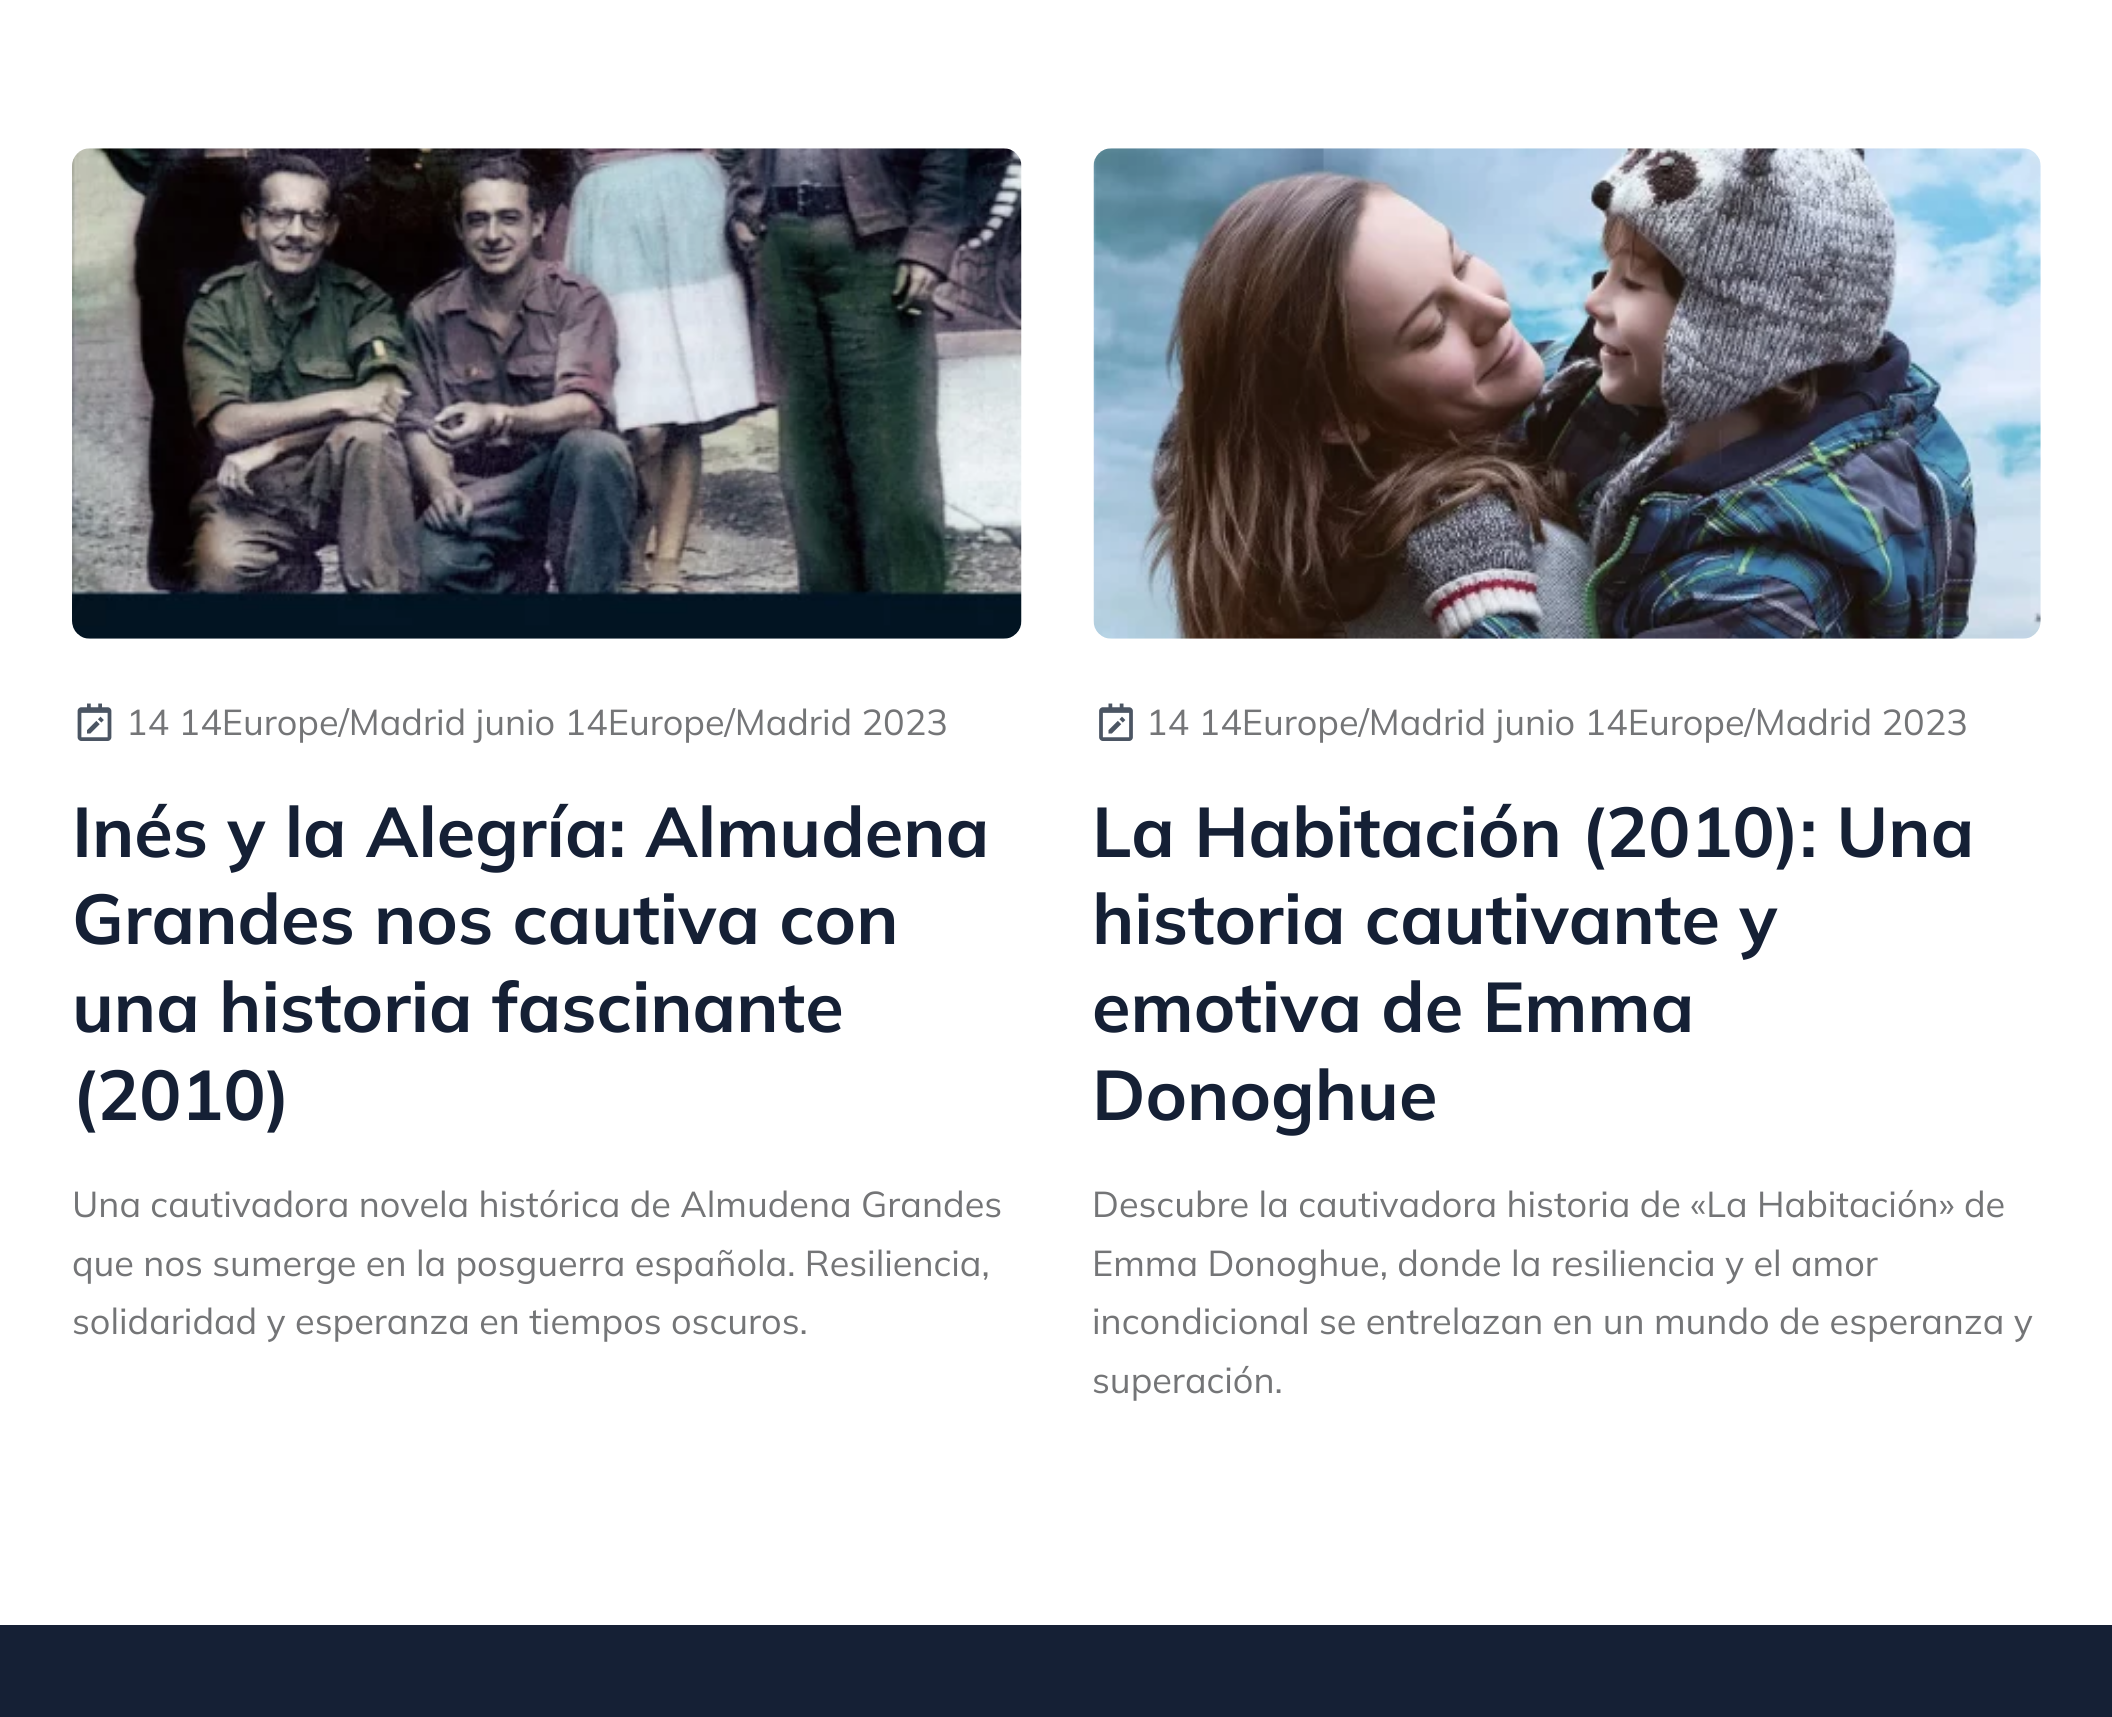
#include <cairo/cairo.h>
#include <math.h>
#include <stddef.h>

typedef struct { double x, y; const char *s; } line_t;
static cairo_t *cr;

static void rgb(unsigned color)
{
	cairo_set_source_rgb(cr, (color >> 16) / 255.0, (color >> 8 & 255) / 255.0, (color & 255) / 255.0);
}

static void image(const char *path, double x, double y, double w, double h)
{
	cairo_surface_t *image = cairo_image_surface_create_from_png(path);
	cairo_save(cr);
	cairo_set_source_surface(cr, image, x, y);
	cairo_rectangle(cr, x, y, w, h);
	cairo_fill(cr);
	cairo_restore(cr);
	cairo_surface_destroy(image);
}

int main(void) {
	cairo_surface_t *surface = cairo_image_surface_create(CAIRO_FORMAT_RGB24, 2112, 1717);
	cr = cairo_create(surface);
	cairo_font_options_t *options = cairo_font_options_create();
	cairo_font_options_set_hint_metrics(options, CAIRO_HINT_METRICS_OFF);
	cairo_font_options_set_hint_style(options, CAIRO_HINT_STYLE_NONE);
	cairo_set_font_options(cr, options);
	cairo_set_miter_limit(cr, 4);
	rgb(0xffffff);
	cairo_paint(cr);
	image("img/1.png", 72, 148, 950, 491);
	image("img/2.png", 77, 703, 35, 38);
	image("img/3.png", 1093, 148, 948, 491);
	image("img/4.png", 1099, 703, 34, 38);
	rgb(0x152035);
	cairo_rectangle(cr, 0, 1625, 2112, 92);
	cairo_fill(cr);
	cairo_select_font_face(cr, "Mulish", CAIRO_FONT_SLANT_NORMAL, CAIRO_FONT_WEIGHT_NORMAL);
	cairo_set_font_size(cr, 36);
	rgb(0x747577);
	cairo_move_to(cr, 126, 735);
	cairo_show_text(cr, "14 14Europe/Madrid junio 14Europe/Madrid 2023");
	cairo_select_font_face(cr, "Mulish", CAIRO_FONT_SLANT_NORMAL, CAIRO_FONT_WEIGHT_BOLD);
	cairo_set_font_size(cr, 70.25);
	rgb(0x152035);
	{
		static const line_t items[] = {
			{72, 857, "Inés y la Alegría: Almudena"},
			{72, 944, "Grandes nos cautiva con"},
			{72, 1032, "una historia fascinante"},
			{72, 1120, "(2010)"},
		};
		for (size_t i = 0; i < sizeof items / sizeof *items; i++) {
			cairo_move_to(cr, items[i].x, items[i].y);
			cairo_show_text(cr, items[i].s);
		}
	}
	cairo_select_font_face(cr, "Mulish", CAIRO_FONT_SLANT_NORMAL, CAIRO_FONT_WEIGHT_NORMAL);
	cairo_set_font_size(cr, 36);
	rgb(0x747577);
	{
		static const line_t items[] = {
			{72, 1217, "Una cautivadora novela histórica de Almudena Grandes"},
			{72, 1276, "que nos sumerge en la posguerra española. Resiliencia,"},
			{72, 1334, "solidaridad y esperanza en tiempos oscuros."},
			{1146, 735, "14 14Europe/Madrid junio 14Europe/Madrid 2023"},
		};
		for (size_t i = 0; i < sizeof items / sizeof *items; i++) {
			cairo_move_to(cr, items[i].x, items[i].y);
			cairo_show_text(cr, items[i].s);
		}
	}
	cairo_select_font_face(cr, "Mulish", CAIRO_FONT_SLANT_NORMAL, CAIRO_FONT_WEIGHT_BOLD);
	cairo_set_font_size(cr, 70.25);
	rgb(0x152035);
	{
		static const line_t items[] = {
			{1092, 857, "La Habitación (2010): Una"},
			{1092, 944, "historia cautivante y"},
			{1092, 1032, "emotiva de Emma"},
			{1092, 1120, "Donoghue"},
		};
		for (size_t i = 0; i < sizeof items / sizeof *items; i++) {
			cairo_move_to(cr, items[i].x, items[i].y);
			cairo_show_text(cr, items[i].s);
		}
	}
	cairo_select_font_face(cr, "Mulish", CAIRO_FONT_SLANT_NORMAL, CAIRO_FONT_WEIGHT_NORMAL);
	cairo_set_font_size(cr, 36);
	rgb(0x747577);
	{
		static const line_t items[] = {
			{1092, 1217, "Descubre la cautivadora historia de «La Habitación» de"},
			{1092, 1276, "Emma Donoghue, donde la resiliencia y el amor"},
			{1092, 1334, "incondicional se entrelazan en un mundo de esperanza y"},
			{1092, 1393, "superación."},
		};
		for (size_t i = 0; i < sizeof items / sizeof *items; i++) {
			cairo_move_to(cr, items[i].x, items[i].y);
			cairo_show_text(cr, items[i].s);
		}
	}
	cairo_surface_write_to_png(surface, "page.png");
	cairo_font_options_destroy(options);
	cairo_destroy(cr);
	cairo_surface_destroy(surface);
	return 0;
}
